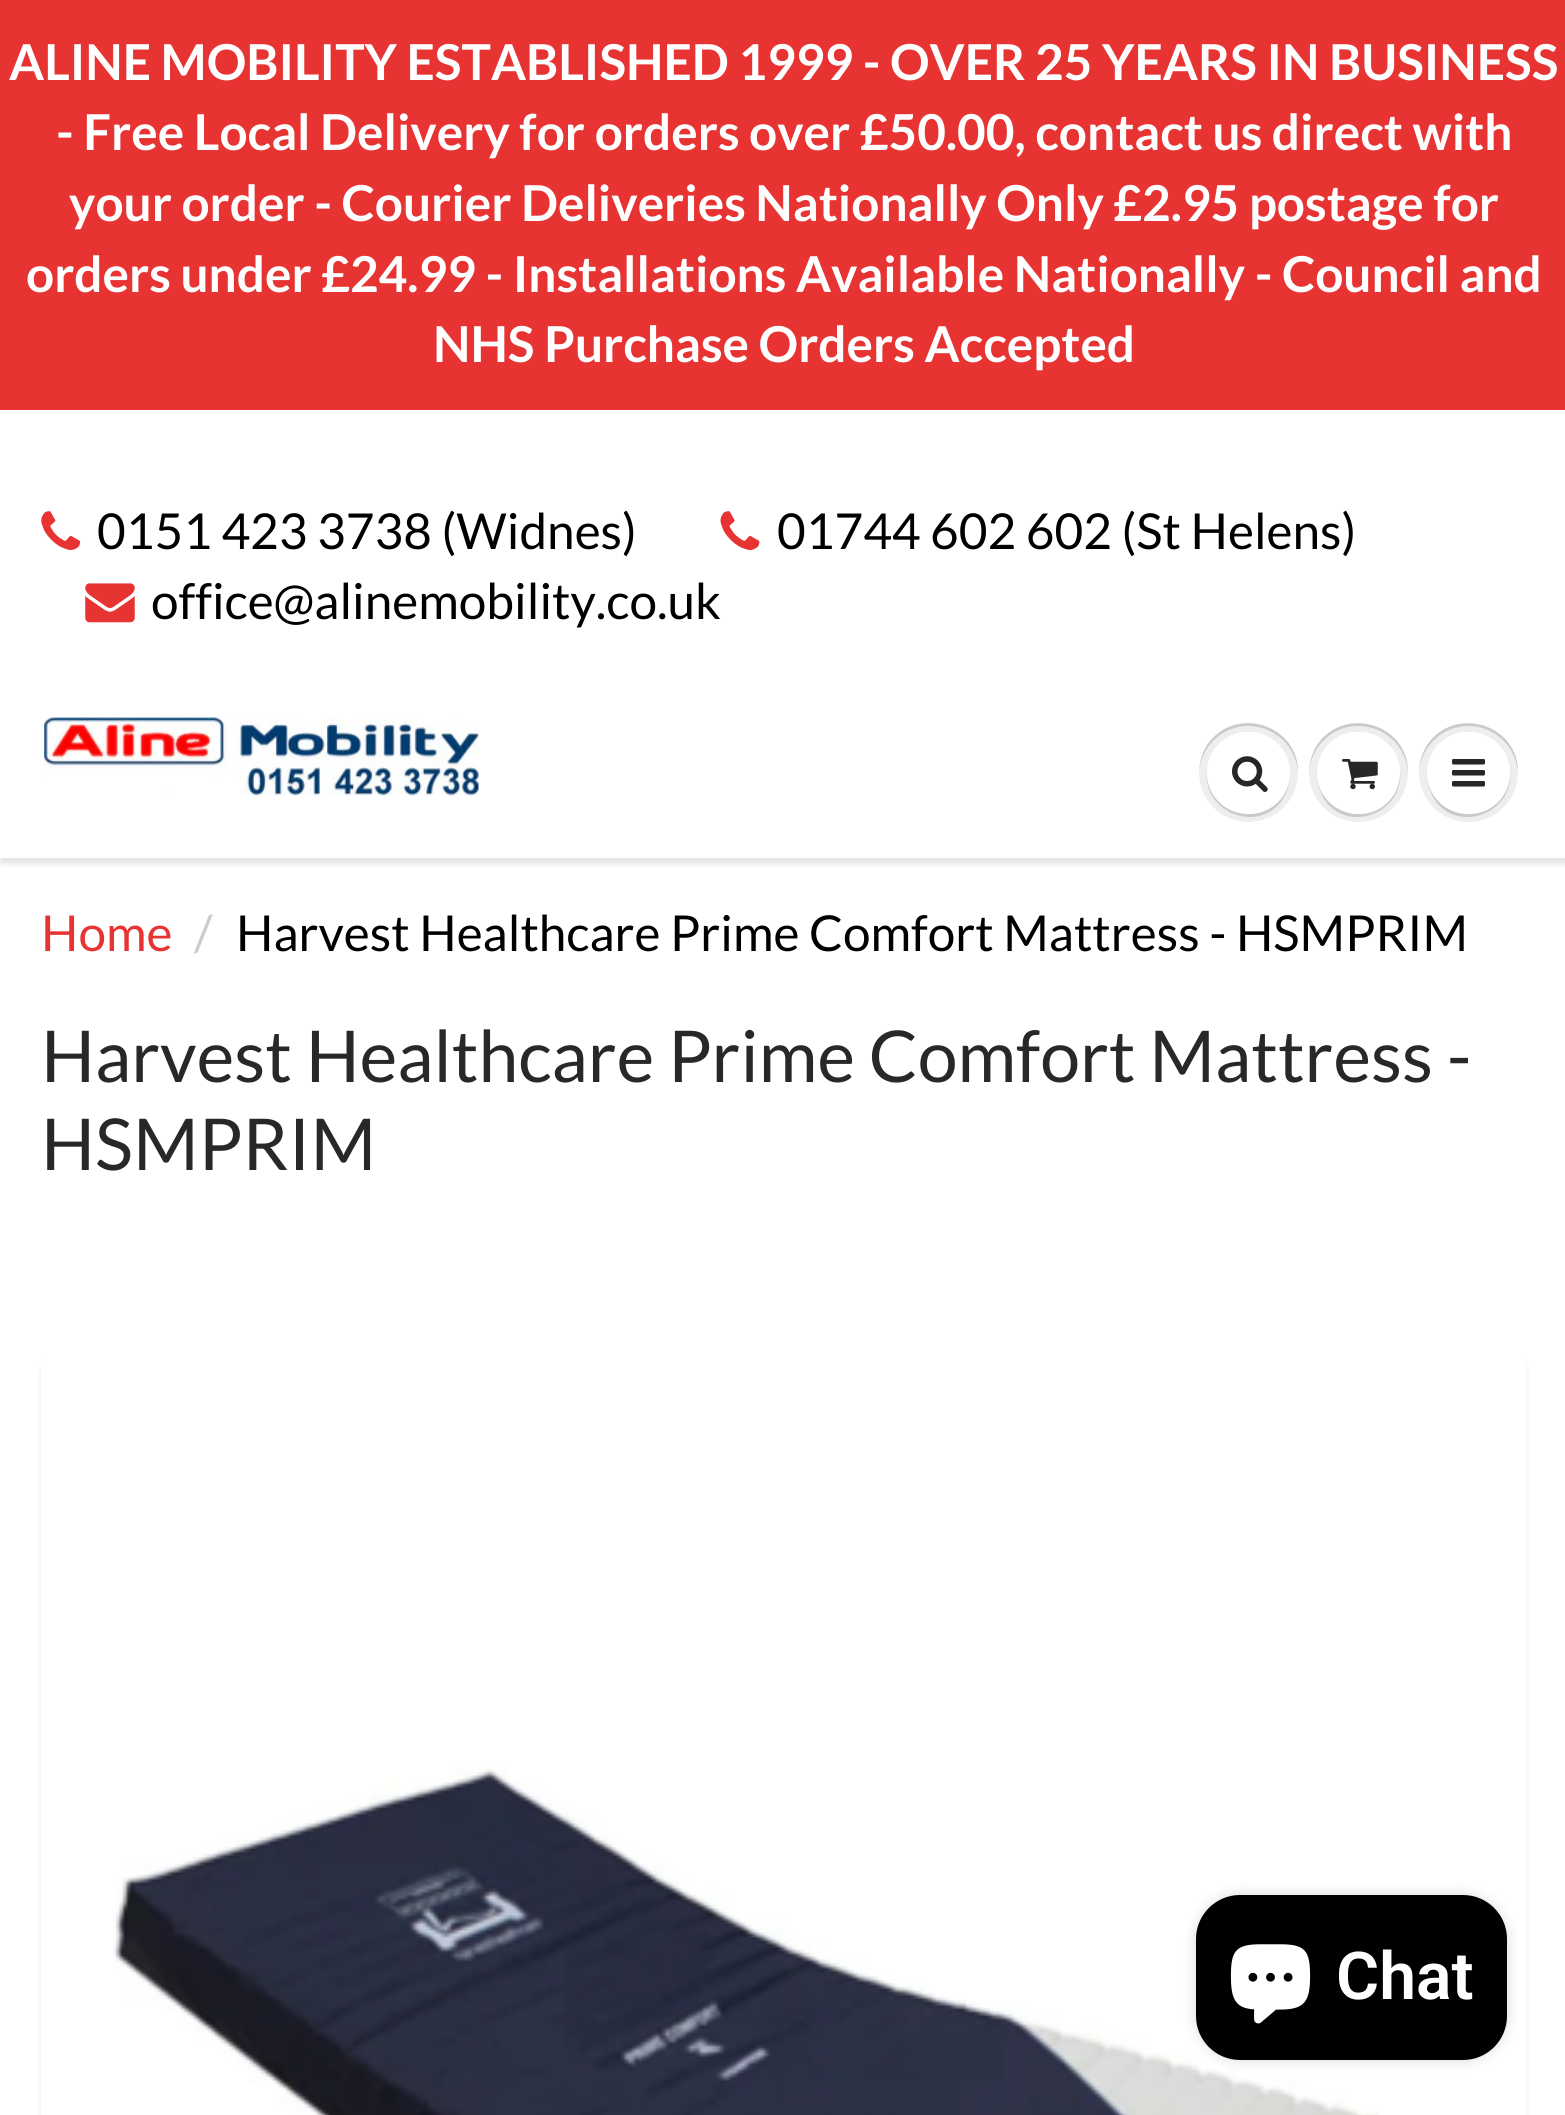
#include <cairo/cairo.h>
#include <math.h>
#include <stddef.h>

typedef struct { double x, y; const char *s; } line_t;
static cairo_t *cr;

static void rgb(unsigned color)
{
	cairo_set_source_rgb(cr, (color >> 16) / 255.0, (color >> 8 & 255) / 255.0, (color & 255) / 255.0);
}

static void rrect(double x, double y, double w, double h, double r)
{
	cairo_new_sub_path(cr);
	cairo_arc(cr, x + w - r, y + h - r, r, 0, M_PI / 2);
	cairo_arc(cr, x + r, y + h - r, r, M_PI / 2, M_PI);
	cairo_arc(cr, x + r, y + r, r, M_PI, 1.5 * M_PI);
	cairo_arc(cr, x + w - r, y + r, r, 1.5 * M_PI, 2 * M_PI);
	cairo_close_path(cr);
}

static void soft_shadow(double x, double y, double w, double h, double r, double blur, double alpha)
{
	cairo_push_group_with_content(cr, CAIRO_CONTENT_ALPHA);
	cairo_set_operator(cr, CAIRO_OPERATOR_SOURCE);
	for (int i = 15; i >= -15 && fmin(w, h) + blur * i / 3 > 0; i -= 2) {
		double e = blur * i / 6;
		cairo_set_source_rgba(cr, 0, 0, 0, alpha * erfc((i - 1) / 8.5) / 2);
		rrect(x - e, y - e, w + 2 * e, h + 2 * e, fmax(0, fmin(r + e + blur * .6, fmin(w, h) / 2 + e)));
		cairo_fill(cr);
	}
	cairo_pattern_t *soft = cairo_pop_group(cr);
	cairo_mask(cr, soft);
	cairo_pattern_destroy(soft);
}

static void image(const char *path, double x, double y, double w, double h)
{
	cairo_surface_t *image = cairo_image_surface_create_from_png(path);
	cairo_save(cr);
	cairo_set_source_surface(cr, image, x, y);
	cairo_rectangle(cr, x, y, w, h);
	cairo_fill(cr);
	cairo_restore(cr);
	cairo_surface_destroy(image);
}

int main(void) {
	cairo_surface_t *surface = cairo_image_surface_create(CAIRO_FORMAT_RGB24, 1565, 2115);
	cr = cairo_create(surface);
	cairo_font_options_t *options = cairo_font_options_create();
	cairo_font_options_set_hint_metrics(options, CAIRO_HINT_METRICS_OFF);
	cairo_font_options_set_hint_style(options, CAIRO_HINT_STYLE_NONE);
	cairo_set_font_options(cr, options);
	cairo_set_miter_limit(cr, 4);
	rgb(0xffffff);
	cairo_paint(cr);
	rgb(0xe83333);
	cairo_rectangle(cr, 0, 0, 1565, 410);
	cairo_fill(cr);
	image("img/1.png", 41, 511, 40, 39);
	image("img/2.png", 720, 511, 40, 39);
	image("img/3.png", 85, 583, 50, 40);
	cairo_save(cr);
	cairo_rectangle(cr, 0, 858, 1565, 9);
	cairo_clip(cr);
	rgb(0x0b191c);
	soft_shadow(0, 690, 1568, 174, 0, 3, 0.12);
	cairo_restore(cr);
	image("img/4.png", 44, 717, 435, 79);
	rgb(0xedefef);
	cairo_arc(cr, 1248.5, 772.5, 49.5, 0, 2 * M_PI);
	cairo_fill(cr);
	rgb(0xc9cbcb);
	cairo_new_path(cr);
	cairo_move_to(cr, 1248, 726);
	cairo_curve_to(cr, 1275, 726, 1297, 747, 1298, 774);
	cairo_curve_to(cr, 1300, 725, 1235, 704, 1207, 745);
	cairo_curve_to(cr, 1202, 753, 1199, 764, 1199, 774);
	cairo_curve_to(cr, 1200, 747, 1222, 726, 1248, 726);
	cairo_close_path(cr);
	cairo_fill(cr);
	cairo_new_path(cr);
	cairo_move_to(cr, 1207, 770);
	cairo_curve_to(cr, 1202, 813, 1259, 835, 1283, 799);
	cairo_curve_to(cr, 1288, 790, 1291, 780, 1290, 770);
	cairo_curve_to(cr, 1290, 779, 1288, 788, 1283, 796);
	cairo_curve_to(cr, 1259, 830, 1205, 812, 1207, 770);
	cairo_close_path(cr);
	cairo_fill(cr);
	rgb(0xffffff);
	rrect(1207, 732, 83, 82, 41);
	cairo_fill(cr);
	cairo_new_path(cr);
	cairo_move_to(cr, 1248, 734);
	cairo_curve_to(cr, 1270, 734, 1289, 752, 1290, 775);
	cairo_curve_to(cr, 1291, 733, 1237, 716, 1214, 750);
	cairo_curve_to(cr, 1209, 757, 1207, 766, 1207, 775);
	cairo_curve_to(cr, 1208, 752, 1226, 734, 1248, 734);
	cairo_close_path(cr);
	cairo_fill(cr);
	image("img/5.png", 1232, 756, 36, 36);
	rgb(0xedefef);
	cairo_arc(cr, 1358.5, 772.5, 49.5, 0, 2 * M_PI);
	cairo_fill(cr);
	rgb(0xc9cbcb);
	cairo_new_path(cr);
	cairo_move_to(cr, 1358, 726);
	cairo_curve_to(cr, 1385, 726, 1407, 747, 1408, 774);
	cairo_curve_to(cr, 1410, 725, 1345, 704, 1317, 745);
	cairo_curve_to(cr, 1312, 753, 1309, 764, 1309, 774);
	cairo_curve_to(cr, 1310, 747, 1332, 726, 1358, 726);
	cairo_close_path(cr);
	cairo_fill(cr);
	cairo_new_path(cr);
	cairo_move_to(cr, 1317, 770);
	cairo_curve_to(cr, 1316, 780, 1319, 790, 1324, 799);
	cairo_curve_to(cr, 1348, 835, 1405, 813, 1400, 770);
	cairo_curve_to(cr, 1400, 779, 1398, 788, 1393, 796);
	cairo_curve_to(cr, 1369, 830, 1315, 812, 1317, 770);
	cairo_close_path(cr);
	cairo_fill(cr);
	rgb(0xffffff);
	rrect(1317, 732, 83, 82, 41);
	cairo_fill(cr);
	cairo_new_path(cr);
	cairo_move_to(cr, 1358, 734);
	cairo_curve_to(cr, 1380, 734, 1399, 752, 1400, 775);
	cairo_curve_to(cr, 1401, 733, 1347, 716, 1324, 750);
	cairo_curve_to(cr, 1319, 757, 1317, 766, 1317, 775);
	cairo_curve_to(cr, 1318, 752, 1336, 734, 1358, 734);
	cairo_close_path(cr);
	cairo_fill(cr);
	image("img/6.png", 1342, 759, 36, 31);
	rgb(0xedefef);
	cairo_arc(cr, 1468.5, 772.5, 49.5, 0, 2 * M_PI);
	cairo_fill(cr);
	rgb(0xc9cbcb);
	cairo_new_path(cr);
	cairo_move_to(cr, 1468, 726);
	cairo_curve_to(cr, 1495, 726, 1517, 747, 1518, 774);
	cairo_curve_to(cr, 1520, 725, 1455, 704, 1427, 745);
	cairo_curve_to(cr, 1422, 753, 1419, 764, 1419, 774);
	cairo_curve_to(cr, 1420, 747, 1442, 726, 1468, 726);
	cairo_close_path(cr);
	cairo_fill(cr);
	cairo_new_path(cr);
	cairo_move_to(cr, 1427, 770);
	cairo_curve_to(cr, 1426, 780, 1429, 790, 1434, 799);
	cairo_curve_to(cr, 1458, 835, 1515, 813, 1510, 770);
	cairo_curve_to(cr, 1510, 779, 1508, 788, 1503, 796);
	cairo_curve_to(cr, 1479, 830, 1425, 812, 1427, 770);
	cairo_close_path(cr);
	cairo_fill(cr);
	rgb(0xffffff);
	rrect(1427, 732, 83, 82, 41);
	cairo_fill(cr);
	cairo_new_path(cr);
	cairo_move_to(cr, 1468, 734);
	cairo_curve_to(cr, 1490, 734, 1509, 752, 1510, 775);
	cairo_curve_to(cr, 1511, 733, 1457, 716, 1434, 750);
	cairo_curve_to(cr, 1429, 757, 1427, 766, 1427, 775);
	cairo_curve_to(cr, 1428, 752, 1446, 734, 1468, 734);
	cairo_close_path(cr);
	cairo_fill(cr);
	image("img/7.png", 1452, 759, 33, 28);
	rgb(0x0b191c);
	soft_shadow(41, 1359, 1485, 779, 14, 3, 0.1);
	rgb(0xffffff);
	rrect(41, 1353, 1485, 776, 14);
	cairo_fill(cr);
	image("img/8.png", 113, 1765, 1267, 350);
	rgb(0x000000);
	soft_shadow(1196, 1895, 311, 165, 44, 7, 0.15);
	rgb(0x000000);
	rrect(1196, 1895, 311, 165, 44);
	cairo_fill(cr);
	image("img/9.png", 1230, 1944, 81, 80);
	cairo_select_font_face(cr, "Lato", CAIRO_FONT_SLANT_NORMAL, CAIRO_FONT_WEIGHT_BOLD);
	cairo_set_font_size(cr, 49.5);
	rgb(0xffffff);
	{
		static const line_t items[] = {
			{9, 80, "ALINE MOBILITY ESTABLISHED 1999 - OVER 25 YEARS IN BUSINESS"},
			{56, 150, "- Free Local Delivery for orders over £50.00, contact us direct with"},
			{69, 221, "your order - Courier Deliveries Nationally Only £2.95 postage for"},
			{26, 292, "orders under £24.99 - Installations Available Nationally - Council and"},
			{433, 362, "NHS Purchase Orders Accepted"},
		};
		for (size_t i = 0; i < sizeof items / sizeof *items; i++) {
			cairo_move_to(cr, items[i].x, items[i].y);
			cairo_show_text(cr, items[i].s);
		}
	}
	cairo_select_font_face(cr, "Lato", CAIRO_FONT_SLANT_NORMAL, CAIRO_FONT_WEIGHT_NORMAL);
	rgb(0x000000);
	{
		static const line_t items[] = {
			{97, 549, "0151 423 3738 (Widnes)"},
			{777, 549, "01744 602 602 (St Helens)"},
			{151, 619, "office@alinemobility.co.uk"},
		};
		for (size_t i = 0; i < sizeof items / sizeof *items; i++) {
			cairo_move_to(cr, items[i].x, items[i].y);
			cairo_show_text(cr, items[i].s);
		}
	}
	rgb(0xe83333);
	cairo_move_to(cr, 41, 951);
	cairo_show_text(cr, "Home");
	rgb(0xcccccc);
	cairo_move_to(cr, 194, 951);
	cairo_show_text(cr, "/");
	rgb(0x000000);
	cairo_move_to(cr, 236, 951);
	cairo_show_text(cr, "Harvest Healthcare Prime Comfort Mattress - HSMPRIM");
	cairo_set_font_size(cr, 71.5);
	rgb(0x282827);
	cairo_move_to(cr, 41, 1082);
	cairo_show_text(cr, "Harvest Healthcare Prime Comfort Mattress -");
	cairo_move_to(cr, 41, 1170);
	cairo_show_text(cr, "HSMPRIM");
	cairo_select_font_face(cr, "Roboto SemiBold", CAIRO_FONT_SLANT_NORMAL, CAIRO_FONT_WEIGHT_NORMAL);
	cairo_set_font_size(cr, 66);
	rgb(0xffffff);
	cairo_move_to(cr, 1336, 1999);
	cairo_show_text(cr, "Chat");
	cairo_surface_write_to_png(surface, "page.png");
	cairo_font_options_destroy(options);
	cairo_destroy(cr);
	cairo_surface_destroy(surface);
	return 0;
}
